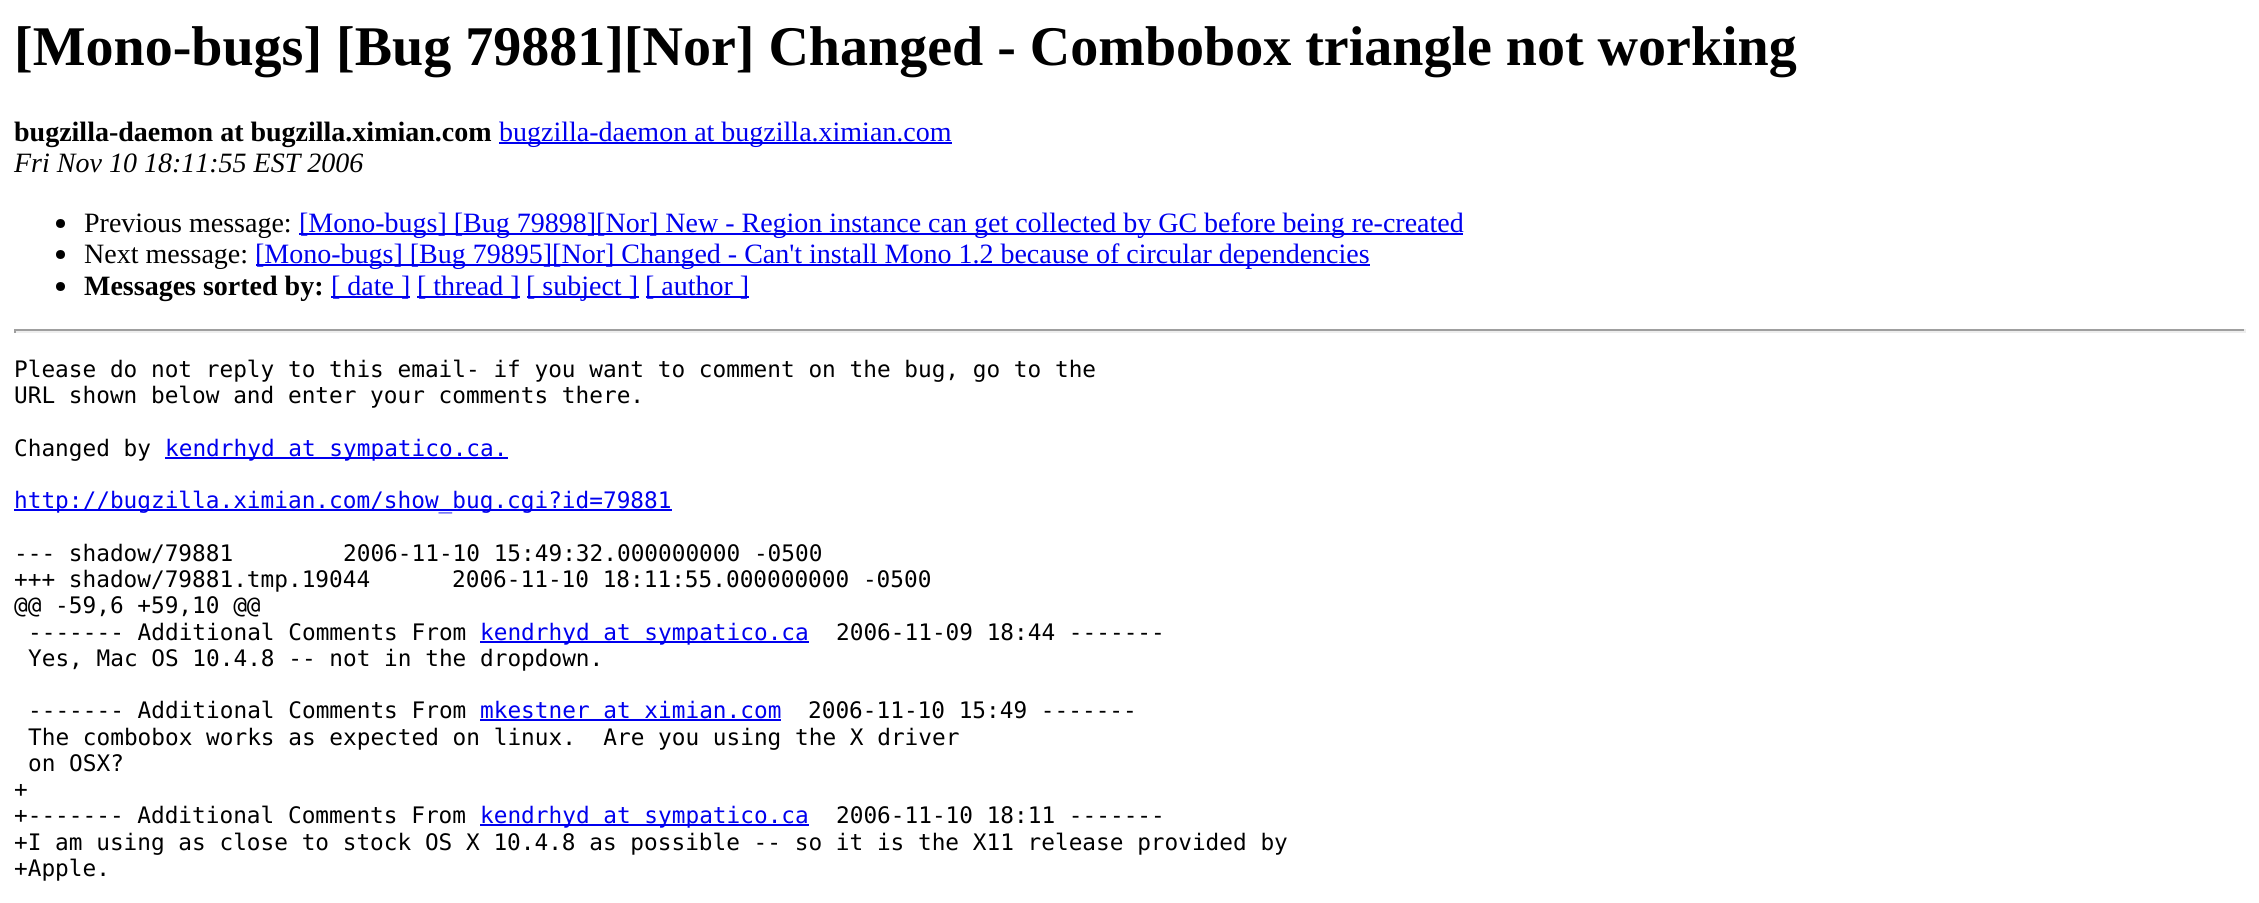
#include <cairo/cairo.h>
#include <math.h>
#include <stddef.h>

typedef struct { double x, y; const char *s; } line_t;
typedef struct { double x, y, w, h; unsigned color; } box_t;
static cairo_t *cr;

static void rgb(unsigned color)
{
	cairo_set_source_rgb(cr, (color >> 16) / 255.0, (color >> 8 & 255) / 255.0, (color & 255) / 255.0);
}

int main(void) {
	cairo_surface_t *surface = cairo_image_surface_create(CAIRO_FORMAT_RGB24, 2259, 903);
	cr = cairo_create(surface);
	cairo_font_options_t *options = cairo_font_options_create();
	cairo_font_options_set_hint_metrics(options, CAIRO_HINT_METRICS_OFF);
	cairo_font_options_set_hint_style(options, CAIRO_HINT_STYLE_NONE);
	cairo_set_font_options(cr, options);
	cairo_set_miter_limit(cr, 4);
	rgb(0xffffff);
	cairo_paint(cr);
	rgb(0x0000ee);
	cairo_rectangle(cr, 499, 142, 453, 2);
	cairo_fill(cr);
	rgb(0x000000);
	cairo_arc(cr, 60.5, 223.5, 4.5, 0, 2 * M_PI);
	cairo_fill(cr);
	rgb(0x0000ee);
	cairo_rectangle(cr, 299, 233, 1164, 2);
	cairo_fill(cr);
	rgb(0x000000);
	cairo_arc(cr, 60.5, 254.5, 4.5, 0, 2 * M_PI);
	cairo_fill(cr);
	rgb(0x0000ee);
	cairo_rectangle(cr, 256, 264, 1114, 2);
	cairo_fill(cr);
	rgb(0x000000);
	cairo_arc(cr, 60.5, 286.5, 4.5, 0, 2 * M_PI);
	cairo_fill(cr);
	{
		static const box_t items[] = {
			{331, 296, 79, 2, 0x0000ee},
			{417, 296, 103, 2, 0x0000ee},
			{527, 296, 112, 2, 0x0000ee},
			{646, 296, 103, 2, 0x0000ee},
			{14, 329, 2231, 2, 0x9f9f9f},
			{2244, 329, 2, 4, 0xeeeeee},
			{14, 331, 2231, 2, 0xeeeeee},
			{14, 329, 2, 4, 0x9f9f9f},
			{165, 457, 343, 2, 0x0000ee},
			{14, 509, 658, 2, 0x0000ee},
			{480, 641, 329, 2, 0x0000ee},
			{480, 719, 301, 2, 0x0000ee},
			{480, 824, 329, 2, 0x0000ee},
		};
		for (size_t i = 0; i < sizeof items / sizeof *items; i++) {
			rgb(items[i].color);
			cairo_rectangle(cr, items[i].x, items[i].y, items[i].w, items[i].h);
			cairo_fill(cr);
		}
	}
	cairo_select_font_face(cr, "Liberation Serif", CAIRO_FONT_SLANT_NORMAL, CAIRO_FONT_WEIGHT_BOLD);
	cairo_set_font_size(cr, 56);
	rgb(0x000000);
	cairo_move_to(cr, 14, 65);
	cairo_show_text(cr, "[Mono-bugs] [Bug 79881][Nor] Changed - Combobox triangle not working");
	cairo_set_font_size(cr, 28);
	cairo_move_to(cr, 14, 141);
	cairo_show_text(cr, "bugzilla-daemon at bugzilla.ximian.com");
	cairo_select_font_face(cr, "Liberation Serif", CAIRO_FONT_SLANT_NORMAL, CAIRO_FONT_WEIGHT_NORMAL);
	rgb(0x0000ee);
	cairo_move_to(cr, 499, 141);
	cairo_show_text(cr, "bugzilla-daemon at bugzilla.ximian.com");
	cairo_select_font_face(cr, "Liberation Serif", CAIRO_FONT_SLANT_ITALIC, CAIRO_FONT_WEIGHT_NORMAL);
	rgb(0x000000);
	cairo_move_to(cr, 14, 172);
	cairo_show_text(cr, "Fri Nov 10 18:11:55 EST 2006");
	cairo_select_font_face(cr, "Liberation Serif", CAIRO_FONT_SLANT_NORMAL, CAIRO_FONT_WEIGHT_NORMAL);
	cairo_move_to(cr, 84, 232);
	cairo_show_text(cr, "Previous message:");
	rgb(0x0000ee);
	cairo_move_to(cr, 299, 232);
	cairo_show_text(cr, "[Mono-bugs] [Bug 79898][Nor] New - Region instance can get collected by GC before being re-created");
	rgb(0x000000);
	cairo_move_to(cr, 84, 263);
	cairo_show_text(cr, "Next message:");
	rgb(0x0000ee);
	cairo_move_to(cr, 255, 263);
	cairo_show_text(cr, "[Mono-bugs] [Bug 79895][Nor] Changed - Can't install Mono 1.2 because of circular dependencies");
	cairo_select_font_face(cr, "Liberation Serif", CAIRO_FONT_SLANT_NORMAL, CAIRO_FONT_WEIGHT_BOLD);
	rgb(0x000000);
	cairo_move_to(cr, 84, 295);
	cairo_show_text(cr, "Messages sorted by:");
	cairo_select_font_face(cr, "Liberation Serif", CAIRO_FONT_SLANT_NORMAL, CAIRO_FONT_WEIGHT_NORMAL);
	rgb(0x0000ee);
	{
		static const line_t items[] = {
			{331, 295, "[ date ]"},
			{417, 295, "[ thread ]"},
			{526, 295, "[ subject ]"},
			{645, 295, "[ author ]"},
		};
		for (size_t i = 0; i < sizeof items / sizeof *items; i++) {
			cairo_move_to(cr, items[i].x, items[i].y);
			cairo_show_text(cr, items[i].s);
		}
	}
	cairo_select_font_face(cr, "DejaVu Sans Mono", CAIRO_FONT_SLANT_NORMAL, CAIRO_FONT_WEIGHT_NORMAL);
	cairo_set_font_size(cr, 22.75);
	rgb(0x000000);
	{
		static const line_t items[] = {
			{14, 377, "Please do not reply to this email- if you want to comment on the bug, go to the"},
			{14, 403, "URL shown below and enter your comments there."},
			{14, 456, "Changed by"},
		};
		for (size_t i = 0; i < sizeof items / sizeof *items; i++) {
			cairo_move_to(cr, items[i].x, items[i].y);
			cairo_show_text(cr, items[i].s);
		}
	}
	rgb(0x0000ee);
	cairo_move_to(cr, 165, 456);
	cairo_show_text(cr, "kendrhyd at sympatico.ca.");
	cairo_move_to(cr, 14, 508);
	cairo_show_text(cr, "http://bugzilla.ximian.com/show_bug.cgi?id=79881");
	rgb(0x000000);
	{
		static const line_t items[] = {
			{14, 561, "--- shadow/79881"},
			{343, 561, "2006-11-10 15:49:32.000000000 -0500"},
			{14, 587, "+++ shadow/79881.tmp.19044"},
			{452, 587, "2006-11-10 18:11:55.000000000 -0500"},
			{14, 613, "@@ -59,6 +59,10 @@"},
			{28, 640, "------- Additional Comments From"},
		};
		for (size_t i = 0; i < sizeof items / sizeof *items; i++) {
			cairo_move_to(cr, items[i].x, items[i].y);
			cairo_show_text(cr, items[i].s);
		}
	}
	rgb(0x0000ee);
	cairo_move_to(cr, 480, 640);
	cairo_show_text(cr, "kendrhyd at sympatico.ca");
	rgb(0x000000);
	{
		static const line_t items[] = {
			{836, 640, "2006-11-09 18:44 -------"},
			{28, 666, "Yes, Mac OS 10.4.8 -- not in the dropdown."},
			{28, 718, "------- Additional Comments From"},
		};
		for (size_t i = 0; i < sizeof items / sizeof *items; i++) {
			cairo_move_to(cr, items[i].x, items[i].y);
			cairo_show_text(cr, items[i].s);
		}
	}
	rgb(0x0000ee);
	cairo_move_to(cr, 480, 718);
	cairo_show_text(cr, "mkestner at ximian.com");
	rgb(0x000000);
	{
		static const line_t items[] = {
			{808, 718, "2006-11-10 15:49 -------"},
			{28, 745, "The combobox works as expected on linux.  Are you using the X driver"},
			{28, 771, "on OSX?"},
			{14, 797, "+"},
			{14, 823, "+------- Additional Comments From"},
		};
		for (size_t i = 0; i < sizeof items / sizeof *items; i++) {
			cairo_move_to(cr, items[i].x, items[i].y);
			cairo_show_text(cr, items[i].s);
		}
	}
	rgb(0x0000ee);
	cairo_move_to(cr, 480, 823);
	cairo_show_text(cr, "kendrhyd at sympatico.ca");
	rgb(0x000000);
	{
		static const line_t items[] = {
			{836, 823, "2006-11-10 18:11 -------"},
			{14, 850, "+I am using as close to stock OS X 10.4.8 as possible -- so it is the X11 release provided by"},
			{14, 876, "+Apple."},
		};
		for (size_t i = 0; i < sizeof items / sizeof *items; i++) {
			cairo_move_to(cr, items[i].x, items[i].y);
			cairo_show_text(cr, items[i].s);
		}
	}
	cairo_surface_write_to_png(surface, "page.png");
	cairo_font_options_destroy(options);
	cairo_destroy(cr);
	cairo_surface_destroy(surface);
	return 0;
}
